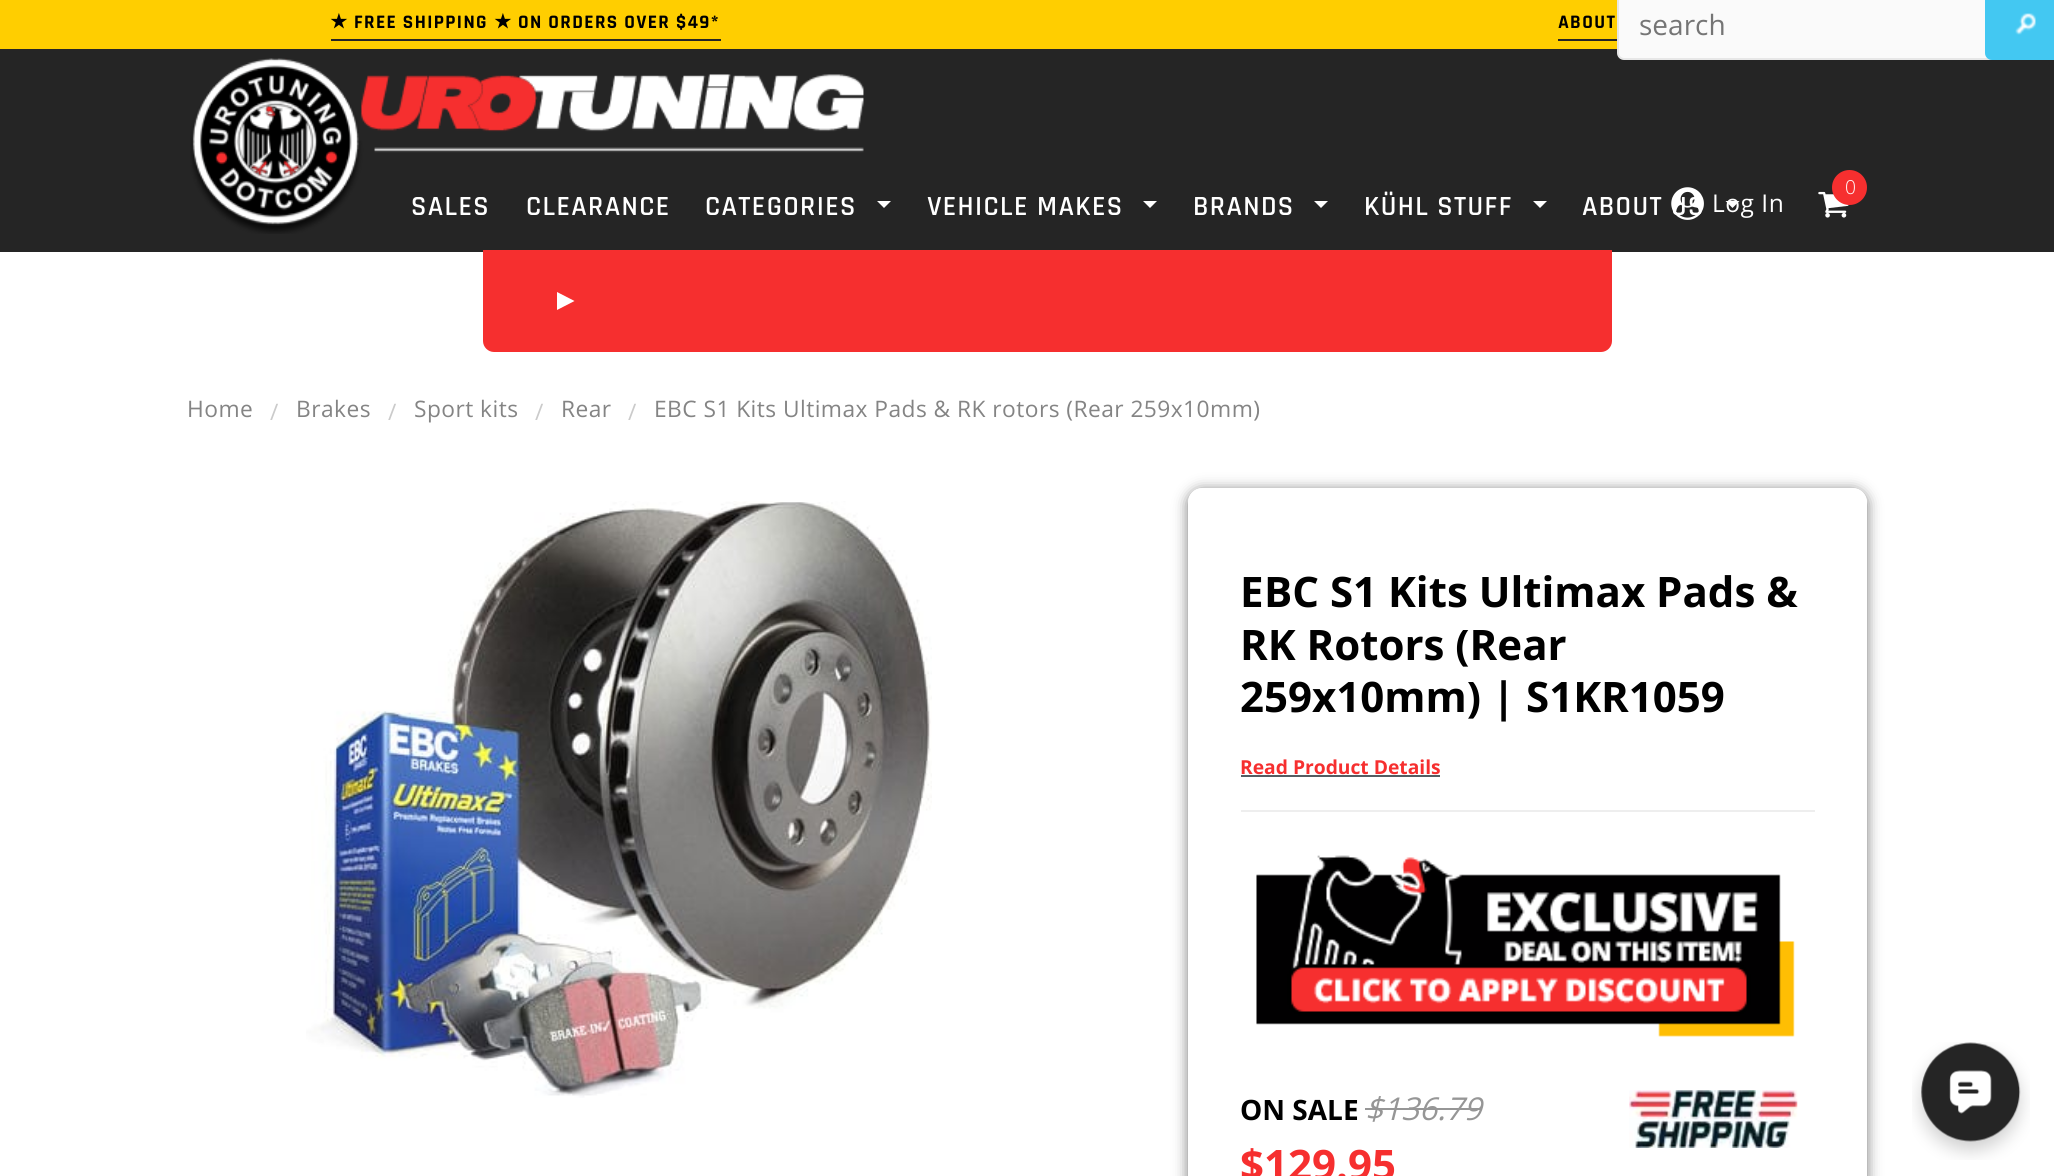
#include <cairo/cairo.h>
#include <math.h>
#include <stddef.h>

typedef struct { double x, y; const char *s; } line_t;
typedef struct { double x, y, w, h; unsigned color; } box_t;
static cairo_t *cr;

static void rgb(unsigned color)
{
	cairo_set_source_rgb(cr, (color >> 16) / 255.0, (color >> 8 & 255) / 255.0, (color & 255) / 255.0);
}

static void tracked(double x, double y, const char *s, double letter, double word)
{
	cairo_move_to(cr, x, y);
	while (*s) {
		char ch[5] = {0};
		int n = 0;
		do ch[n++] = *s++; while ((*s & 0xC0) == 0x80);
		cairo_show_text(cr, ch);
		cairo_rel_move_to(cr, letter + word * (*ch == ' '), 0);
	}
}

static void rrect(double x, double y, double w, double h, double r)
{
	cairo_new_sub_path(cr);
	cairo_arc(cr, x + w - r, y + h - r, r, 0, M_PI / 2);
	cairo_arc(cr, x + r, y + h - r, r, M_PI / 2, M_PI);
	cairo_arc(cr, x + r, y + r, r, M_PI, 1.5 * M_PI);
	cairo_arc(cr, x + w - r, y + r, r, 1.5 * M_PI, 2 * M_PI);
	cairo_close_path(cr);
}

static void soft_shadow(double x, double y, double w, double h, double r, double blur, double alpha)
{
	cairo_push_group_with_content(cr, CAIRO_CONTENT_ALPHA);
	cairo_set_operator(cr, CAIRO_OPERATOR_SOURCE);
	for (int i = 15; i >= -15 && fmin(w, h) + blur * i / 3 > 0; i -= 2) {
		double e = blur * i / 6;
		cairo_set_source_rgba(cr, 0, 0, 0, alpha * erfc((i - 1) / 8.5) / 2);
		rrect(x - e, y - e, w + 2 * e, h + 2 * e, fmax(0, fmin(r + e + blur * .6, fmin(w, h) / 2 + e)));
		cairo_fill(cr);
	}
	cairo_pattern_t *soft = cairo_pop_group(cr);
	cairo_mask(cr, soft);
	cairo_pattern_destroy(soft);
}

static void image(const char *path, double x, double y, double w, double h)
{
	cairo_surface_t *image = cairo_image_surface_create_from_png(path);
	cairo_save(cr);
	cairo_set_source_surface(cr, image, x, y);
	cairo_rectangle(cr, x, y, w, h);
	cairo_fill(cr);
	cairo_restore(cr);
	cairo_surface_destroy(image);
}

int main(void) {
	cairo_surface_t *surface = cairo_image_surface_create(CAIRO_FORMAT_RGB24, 2054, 1176);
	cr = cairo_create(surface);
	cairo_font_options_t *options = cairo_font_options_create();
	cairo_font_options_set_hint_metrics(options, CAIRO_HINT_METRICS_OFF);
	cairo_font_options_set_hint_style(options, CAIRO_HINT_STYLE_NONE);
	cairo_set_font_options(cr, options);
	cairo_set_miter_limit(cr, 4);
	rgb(0xffffff);
	cairo_paint(cr);
	{
		static const box_t items[] = {
			{0, 0, 1617, 49, 0xffce00},
			{331, 39, 390, 2, 0x252525},
			{1558, 39, 59, 2, 0x252525},
			{0, 49, 2054, 203, 0x252525},
		};
		for (size_t i = 0; i < sizeof items / sizeof *items; i++) {
			rgb(items[i].color);
			cairo_rectangle(cr, items[i].x, items[i].y, items[i].w, items[i].h);
			cairo_fill(cr);
		}
	}
	rgb(0xfafafa);
	rrect(1618, -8, 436, 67, 6);
	cairo_fill_preserve(cr);
	rgb(0xe7e7e7);
	cairo_stroke(cr);
	rgb(0x43c8f2);
	rrect(1985, -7, 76, 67, 7);
	cairo_fill(cr);
	image("img/1.png", 2015, 13, 21, 22);
	image("img/2.png", 190, 58, 674, 176);
	rgb(0xffffff);
	cairo_new_path(cr);
	cairo_move_to(cr, 877, 201);
	cairo_line_to(cr, 891, 201);
	cairo_line_to(cr, 884, 208);
	cairo_close_path(cr);
	cairo_fill(cr);
	cairo_new_path(cr);
	cairo_move_to(cr, 1143, 201);
	cairo_line_to(cr, 1157, 201);
	cairo_line_to(cr, 1150, 208);
	cairo_close_path(cr);
	cairo_fill(cr);
	cairo_new_path(cr);
	cairo_move_to(cr, 1314, 201);
	cairo_line_to(cr, 1328, 201);
	cairo_line_to(cr, 1321, 208);
	cairo_close_path(cr);
	cairo_fill(cr);
	cairo_new_path(cr);
	cairo_move_to(cr, 1533, 201);
	cairo_line_to(cr, 1547, 201);
	cairo_line_to(cr, 1540, 208);
	cairo_close_path(cr);
	cairo_fill(cr);
	cairo_new_path(cr);
	cairo_move_to(cr, 1725.5, 201);
	cairo_line_to(cr, 1739.5, 201);
	cairo_line_to(cr, 1732.5, 208);
	cairo_close_path(cr);
	cairo_fill(cr);
	image("img/3.png", 1818, 191, 31, 27);
	rgb(0xf62f2f);
	cairo_arc(cr, 1849.5, 187.5, 17.5, 0, 2 * M_PI);
	cairo_fill(cr);
	cairo_new_path(cr);
	cairo_move_to(cr, 483, 250);
	cairo_line_to(cr, 1612, 250);
	cairo_line_to(cr, 1612, 341);
	cairo_curve_to(cr, 1612, 347, 1607, 352, 1601, 352);
	cairo_line_to(cr, 494, 352);
	cairo_curve_to(cr, 488, 352, 483, 347, 483, 341);
	cairo_close_path(cr);
	cairo_fill(cr);
	rgb(0xffffff);
	cairo_new_path(cr);
	cairo_move_to(cr, 557, 310);
	cairo_line_to(cr, 557, 292);
	cairo_line_to(cr, 574.5, 301);
	cairo_close_path(cr);
	cairo_fill(cr);
	image("img/5.png", 306, 501, 626, 597);
	cairo_save(cr);
	cairo_set_fill_rule(cr, CAIRO_FILL_RULE_EVEN_ODD);
	cairo_new_path(cr);
	cairo_move_to(cr, 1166, 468);
	cairo_line_to(cr, 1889, 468);
	cairo_line_to(cr, 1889, 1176);
	cairo_line_to(cr, 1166, 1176);
	cairo_close_path(cr);
	cairo_move_to(cr, 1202, 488);
	cairo_line_to(cr, 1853, 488);
	cairo_curve_to(cr, 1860.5, 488, 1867, 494.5, 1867, 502);
	cairo_line_to(cr, 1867, 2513);
	cairo_curve_to(cr, 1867, 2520.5, 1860.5, 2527, 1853, 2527);
	cairo_line_to(cr, 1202, 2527);
	cairo_curve_to(cr, 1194.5, 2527, 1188, 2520.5, 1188, 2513);
	cairo_line_to(cr, 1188, 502);
	cairo_curve_to(cr, 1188, 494.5, 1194.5, 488, 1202, 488);
	cairo_close_path(cr);
	cairo_clip(cr);
	rgb(0x777777);
	soft_shadow(1188, 490, 679, 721, 14, 7, 1);
	cairo_restore(cr);
	rgb(0x535d62);
	cairo_rectangle(cr, 1241, 775, 199, 2);
	cairo_fill(cr);
	rgb(0xeeeeee);
	cairo_rectangle(cr, 1241, 810, 574, 2);
	cairo_fill(cr);
	image("img/6.png", 1256, 855, 539, 182);
	rgb(0x969696);
	cairo_rectangle(cr, 1365, 1108, 117, 2);
	cairo_fill(cr);
	image("img/7.png", 1629, 1090, 169, 58);
	image("img/8.png", 1912, 1042, 118, 118);
	cairo_select_font_face(cr, "DejaVu Sans", CAIRO_FONT_SLANT_NORMAL, CAIRO_FONT_WEIGHT_BOLD);
	cairo_set_font_size(cr, 19.25);
	rgb(0x000000);
	tracked(330, 28, "★", 1.4, 0);
	cairo_select_font_face(cr, "Rajdhani", CAIRO_FONT_SLANT_NORMAL, CAIRO_FONT_WEIGHT_BOLD);
	tracked(354, 28, "FREE SHIPPING", 1.4, 0);
	cairo_select_font_face(cr, "DejaVu Sans", CAIRO_FONT_SLANT_NORMAL, CAIRO_FONT_WEIGHT_BOLD);
	tracked(494, 28, "★", 1.4, 0);
	cairo_select_font_face(cr, "Rajdhani", CAIRO_FONT_SLANT_NORMAL, CAIRO_FONT_WEIGHT_BOLD);
	tracked(518, 28, "ON ORDERS OVER $49*", 1.4, 0);
	tracked(1558, 28, "ABOUT", 1.4, 0);
	cairo_select_font_face(cr, "Open Sans", CAIRO_FONT_SLANT_NORMAL, CAIRO_FONT_WEIGHT_NORMAL);
	cairo_set_font_size(cr, 28);
	rgb(0x757575);
	cairo_move_to(cr, 1639, 35);
	cairo_show_text(cr, "search");
	cairo_select_font_face(cr, "Rajdhani SemiBold", CAIRO_FONT_SLANT_NORMAL, CAIRO_FONT_WEIGHT_NORMAL);
	rgb(0xffffff);
	{
		static const line_t items[] = {
			{411, 215, "SALES"},
			{526, 215, "CLEARANCE"},
			{705, 215, "CATEGORIES"},
			{927, 215, "VEHICLE MAKES"},
			{1193, 215, "BRANDS"},
			{1364, 215, "KÜHL STUFF"},
			{1582, 215, "ABOUT US"},
		};
		for (size_t i = 0; i < sizeof items / sizeof *items; i++) {
			tracked(items[i].x, items[i].y, items[i].s, 1.4, 0);
		}
	}
	cairo_select_font_face(cr, "Open Sans Light", CAIRO_FONT_SLANT_NORMAL, CAIRO_FONT_WEIGHT_NORMAL);
	cairo_set_font_size(cr, 19.25);
	tracked(1845, 194, "0", 0.5, 0);
	image("img/4.png", 1671, 187, 33, 33);
	cairo_select_font_face(cr, "Open Sans", CAIRO_FONT_SLANT_NORMAL, CAIRO_FONT_WEIGHT_NORMAL);
	cairo_set_font_size(cr, 24.5);
	tracked(1712, 212, "Log In", 0.5, 0);
	cairo_set_font_size(cr, 22.75);
	rgb(0x848484);
	tracked(187, 417, "Home", 0.45, 0);
	rgb(0xcbcbcb);
	tracked(270, 420, "/", 0.45, 0);
	rgb(0x848484);
	tracked(296, 417, "Brakes", 0.45, 0);
	rgb(0xcbcbcb);
	tracked(388, 420, "/", 0.45, 0);
	rgb(0x848484);
	tracked(414, 417, "Sport kits", 0.45, 0);
	rgb(0xcbcbcb);
	tracked(535, 420, "/", 0.45, 0);
	rgb(0x848484);
	tracked(561, 417, "Rear", 0.45, 0);
	rgb(0xcbcbcb);
	tracked(628, 420, "/", 0.45, 0);
	rgb(0x848484);
	tracked(654, 417, "EBC S1 Kits Ultimax Pads & RK rotors (Rear 259x10mm)", 0.45, 0);
	cairo_select_font_face(cr, "Noto Sans", CAIRO_FONT_SLANT_NORMAL, CAIRO_FONT_WEIGHT_BOLD);
	cairo_set_font_size(cr, 42);
	rgb(0x000000);
	cairo_move_to(cr, 1240, 607);
	cairo_show_text(cr, "E");
	cairo_select_font_face(cr, "Open Sans", CAIRO_FONT_SLANT_NORMAL, CAIRO_FONT_WEIGHT_BOLD);
	{
		static const line_t items[] = {
			{1264, 607, "BC S1 Kits Ultimax Pads &"},
			{1240, 660, "RK Rotors (Rear"},
			{1240, 712, "259x10mm) | S1KR1059"},
		};
		for (size_t i = 0; i < sizeof items / sizeof *items; i++) {
			cairo_move_to(cr, items[i].x, items[i].y);
			cairo_show_text(cr, items[i].s);
		}
	}
	cairo_set_font_size(cr, 19.25);
	rgb(0xf62f2f);
	cairo_move_to(cr, 1240, 774);
	cairo_show_text(cr, "Read Product Details");
	cairo_set_font_size(cr, 28);
	rgb(0x000000);
	cairo_move_to(cr, 1240, 1120);
	cairo_show_text(cr, "ON SALE");
	cairo_select_font_face(cr, "Open Sans", CAIRO_FONT_SLANT_ITALIC, CAIRO_FONT_WEIGHT_NORMAL);
	cairo_set_font_size(cr, 31.5);
	rgb(0x969696);
	cairo_move_to(cr, 1365, 1120);
	cairo_show_text(cr, "$136.79");
	cairo_select_font_face(cr, "Open Sans", CAIRO_FONT_SLANT_NORMAL, CAIRO_FONT_WEIGHT_BOLD);
	cairo_set_font_size(cr, 42);
	rgb(0xf62f2f);
	cairo_move_to(cr, 1240, 1180);
	cairo_show_text(cr, "$129.95");
	cairo_surface_write_to_png(surface, "page.png");
	cairo_font_options_destroy(options);
	cairo_destroy(cr);
	cairo_surface_destroy(surface);
	return 0;
}
